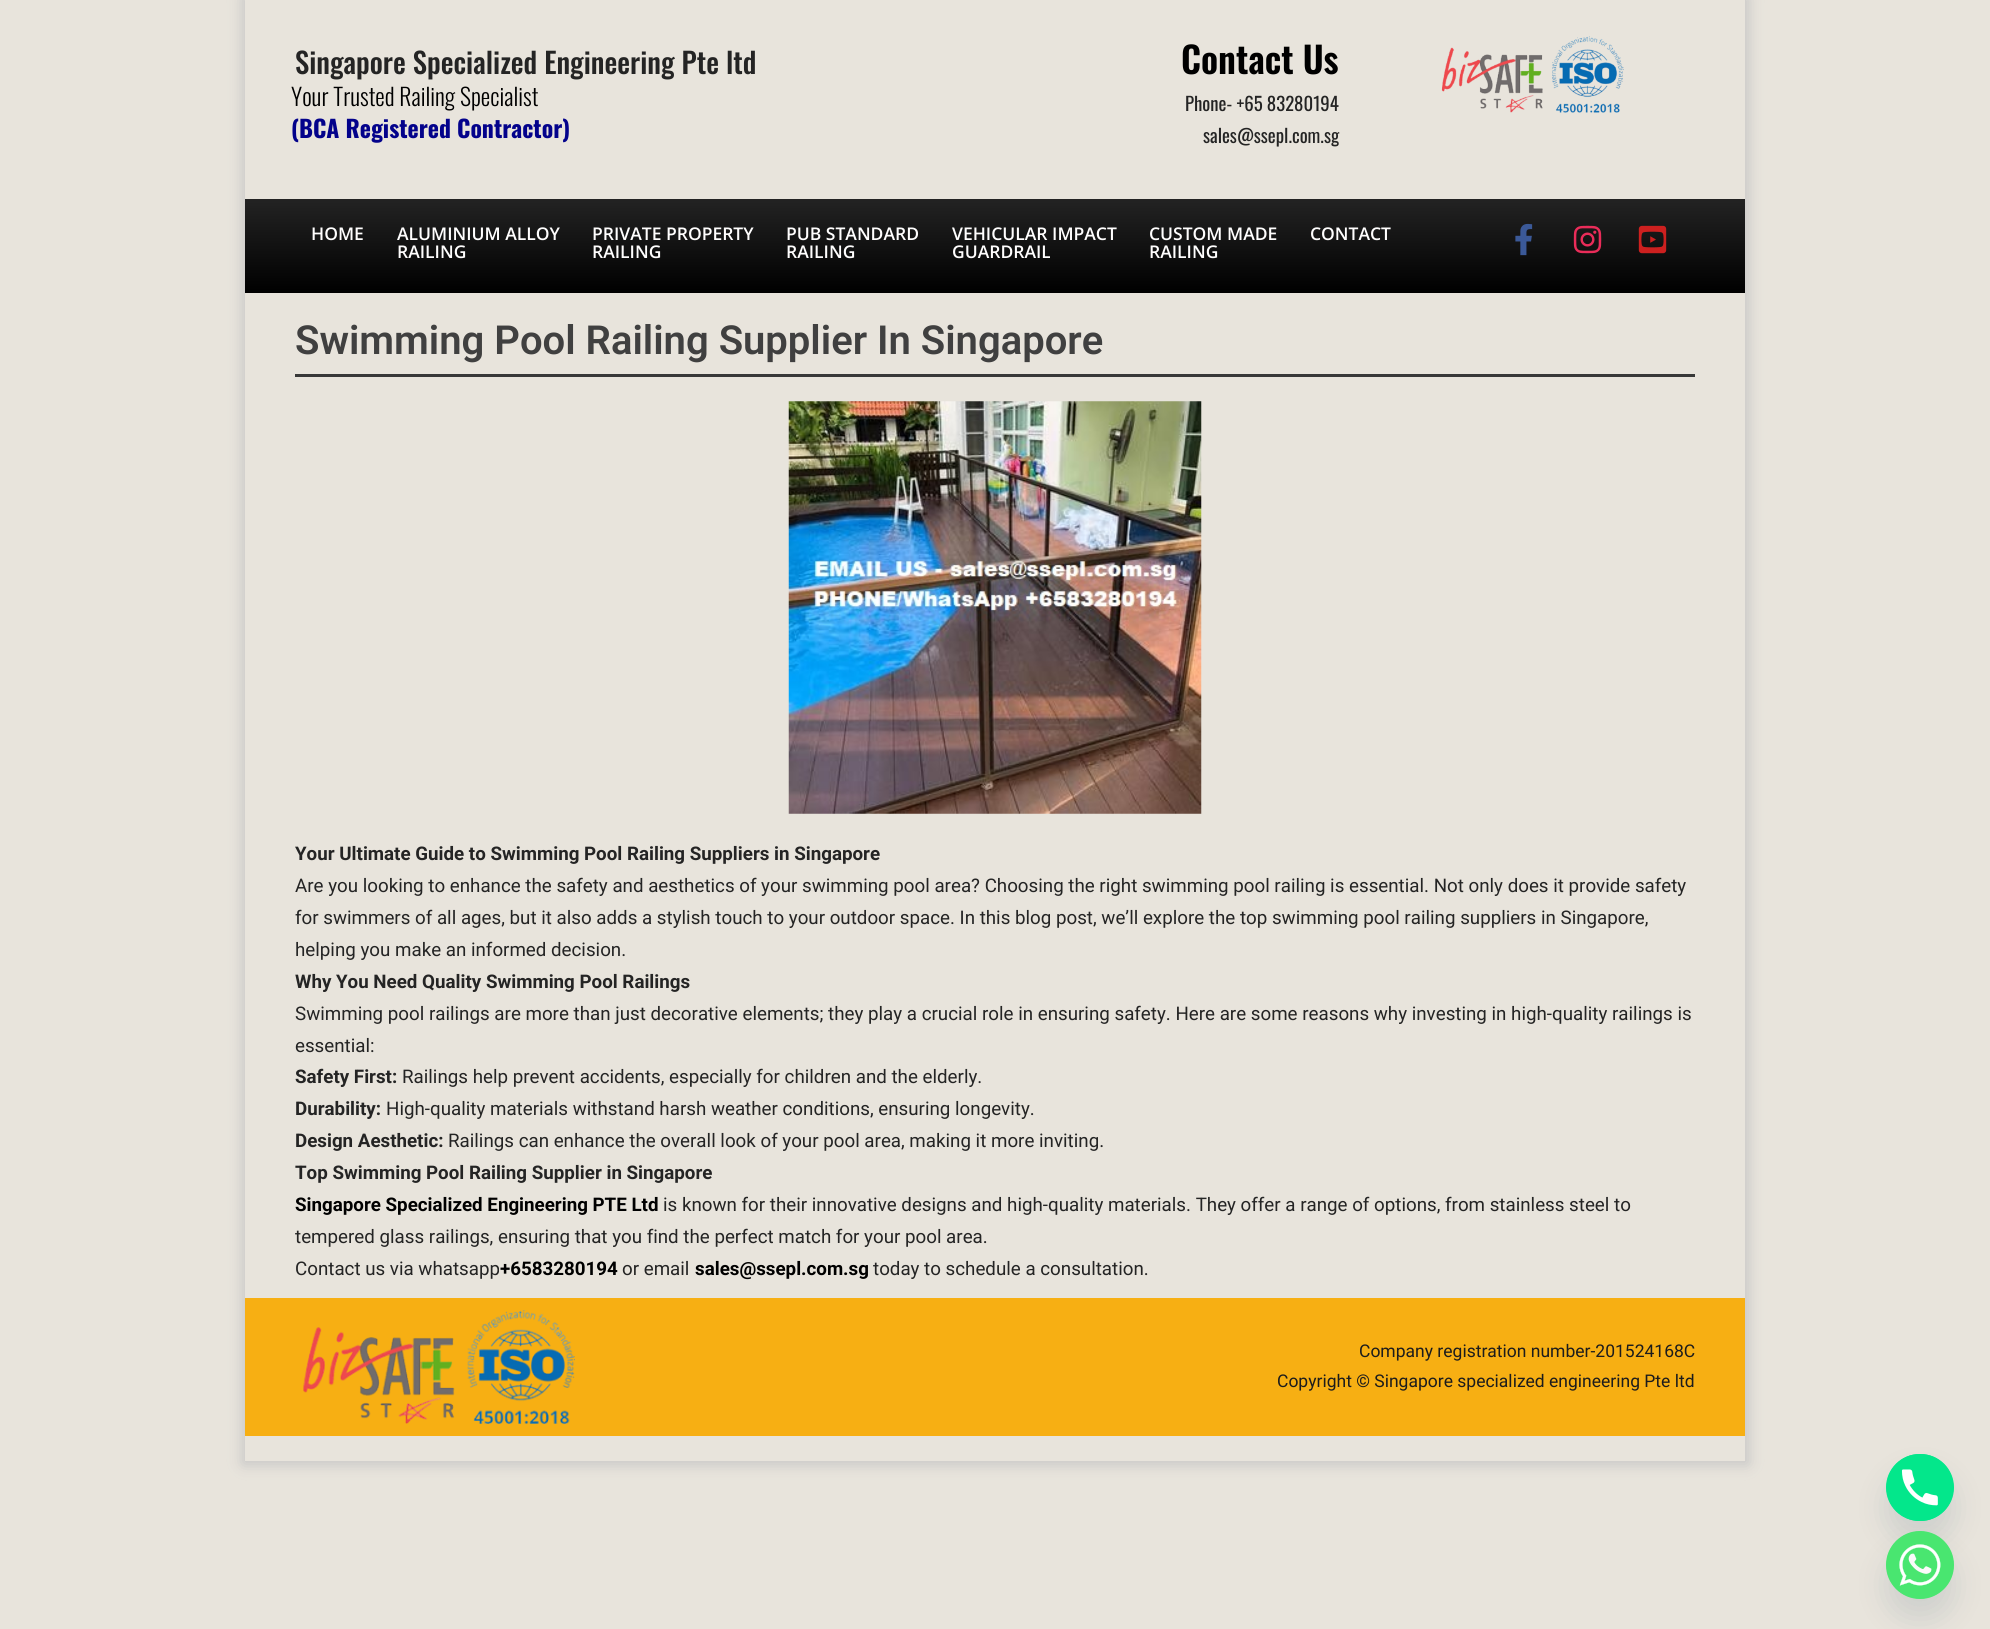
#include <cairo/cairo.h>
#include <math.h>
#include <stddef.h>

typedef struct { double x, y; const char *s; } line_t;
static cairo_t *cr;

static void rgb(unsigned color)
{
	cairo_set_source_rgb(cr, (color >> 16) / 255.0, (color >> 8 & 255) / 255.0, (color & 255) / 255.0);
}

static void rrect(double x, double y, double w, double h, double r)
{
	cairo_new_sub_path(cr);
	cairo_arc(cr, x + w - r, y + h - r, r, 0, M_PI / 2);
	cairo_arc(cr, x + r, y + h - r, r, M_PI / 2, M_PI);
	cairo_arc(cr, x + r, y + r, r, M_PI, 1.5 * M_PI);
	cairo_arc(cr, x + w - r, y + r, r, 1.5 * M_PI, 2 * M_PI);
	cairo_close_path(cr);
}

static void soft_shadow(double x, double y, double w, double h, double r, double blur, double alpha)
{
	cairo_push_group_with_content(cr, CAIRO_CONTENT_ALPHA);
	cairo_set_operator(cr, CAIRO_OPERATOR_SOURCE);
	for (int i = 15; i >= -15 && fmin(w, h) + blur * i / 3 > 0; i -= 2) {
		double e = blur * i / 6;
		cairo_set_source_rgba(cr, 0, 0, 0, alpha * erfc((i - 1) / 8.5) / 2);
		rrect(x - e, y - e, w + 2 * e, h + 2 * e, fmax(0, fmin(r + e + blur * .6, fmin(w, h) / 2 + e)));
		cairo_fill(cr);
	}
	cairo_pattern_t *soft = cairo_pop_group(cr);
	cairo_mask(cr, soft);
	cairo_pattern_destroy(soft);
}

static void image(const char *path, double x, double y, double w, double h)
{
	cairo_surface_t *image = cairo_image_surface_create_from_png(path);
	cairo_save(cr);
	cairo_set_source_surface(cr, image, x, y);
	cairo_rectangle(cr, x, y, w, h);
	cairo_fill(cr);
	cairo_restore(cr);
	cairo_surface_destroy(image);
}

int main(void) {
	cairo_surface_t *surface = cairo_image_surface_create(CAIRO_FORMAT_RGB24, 1990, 1629);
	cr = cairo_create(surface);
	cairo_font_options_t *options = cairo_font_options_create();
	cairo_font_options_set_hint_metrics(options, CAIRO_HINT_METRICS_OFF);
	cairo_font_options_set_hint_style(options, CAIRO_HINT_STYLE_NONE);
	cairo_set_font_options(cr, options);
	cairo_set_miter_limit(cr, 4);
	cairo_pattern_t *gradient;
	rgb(0xe8e4dc);
	cairo_paint(cr);
	cairo_save(cr);
	cairo_set_fill_rule(cr, CAIRO_FILL_RULE_EVEN_ODD);
	cairo_new_path(cr);
	cairo_move_to(cr, 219, 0);
	cairo_line_to(cr, 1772, 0);
	cairo_line_to(cr, 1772, 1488);
	cairo_line_to(cr, 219, 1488);
	cairo_close_path(cr);
	cairo_move_to(cr, 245, 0);
	cairo_line_to(cr, 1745, 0);
	cairo_line_to(cr, 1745, 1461);
	cairo_line_to(cr, 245, 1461);
	cairo_close_path(cr);
	cairo_clip(cr);
	rgb(0xc4c4c4);
	soft_shadow(243, -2, 1505, 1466, 0, 7.5, 1);
	cairo_restore(cr);
	image("img/1.png", 1441, 36, 183, 77);
	gradient = cairo_pattern_create_linear(995, 199, 995, 293);
	cairo_pattern_add_color_stop_rgba(gradient, 0, 0.137, 0.137, 0.137, 1);
	cairo_pattern_add_color_stop_rgba(gradient, 1, 0, 0, 0, 1);
	cairo_set_source(cr, gradient);
	cairo_pattern_destroy(gradient);
	cairo_rectangle(cr, 245, 199, 1500, 94);
	cairo_fill(cr);
	image("img/2.png", 1515, 223, 18, 33);
	image("img/3.png", 1573, 225, 29, 29);
	image("img/4.png", 1638, 225, 29, 29);
	rgb(0x383838);
	cairo_rectangle(cr, 295, 374, 1400, 3);
	cairo_fill(cr);
	image("img/5.png", 788, 401, 414, 413);
	rgb(0xf7af13);
	cairo_rectangle(cr, 245, 1298, 1500, 138);
	cairo_fill(cr);
	image("img/6.png", 303, 1310, 272, 114);
	rgb(0x49687e);
	soft_shadow(1886, 1474, 68, 67, 33.5, 15, 0.16);
	rgb(0x03e78b);
	rrect(1886, 1454, 68, 67, 33.5);
	cairo_fill(cr);
	image("img/7.png", 1886, 1454, 68, 67);
	rgb(0x49687e);
	soft_shadow(1886, 1551, 68, 68, 34, 15, 0.16);
	rgb(0x49e670);
	cairo_arc(cr, 1920, 1565, 34, 0, 2 * M_PI);
	cairo_fill(cr);
	image("img/8.png", 1886, 1531, 68, 68);
	cairo_select_font_face(cr, "Oswald Medium", CAIRO_FONT_SLANT_NORMAL, CAIRO_FONT_WEIGHT_NORMAL);
	cairo_set_font_size(cr, 28.75);
	rgb(0x242424);
	cairo_move_to(cr, 295, 74);
	cairo_show_text(cr, "Singapore Specialized Engineering Pte ltd");
	cairo_select_font_face(cr, "Oswald Light", CAIRO_FONT_SLANT_NORMAL, CAIRO_FONT_WEIGHT_NORMAL);
	cairo_set_font_size(cr, 23.75);
	rgb(0x000000);
	cairo_move_to(cr, 291, 106);
	cairo_show_text(cr, "Your Trusted Railing Specialist");
	cairo_select_font_face(cr, "Oswald", CAIRO_FONT_SLANT_NORMAL, CAIRO_FONT_WEIGHT_BOLD);
	rgb(0x03028b);
	cairo_move_to(cr, 291, 138);
	cairo_show_text(cr, "(BCA Registered Contractor)");
	cairo_select_font_face(cr, "Oswald SemiBold", CAIRO_FONT_SLANT_NORMAL, CAIRO_FONT_WEIGHT_NORMAL);
	cairo_set_font_size(cr, 36.25);
	rgb(0x000000);
	cairo_move_to(cr, 1181, 74);
	cairo_show_text(cr, "Contact Us");
	cairo_select_font_face(cr, "Oswald", CAIRO_FONT_SLANT_NORMAL, CAIRO_FONT_WEIGHT_NORMAL);
	cairo_set_font_size(cr, 18.75);
	rgb(0x242424);
	cairo_move_to(cr, 1185, 111);
	cairo_show_text(cr, "Phone- +65 83280194");
	cairo_move_to(cr, 1203, 143);
	cairo_show_text(cr, "sales@ssepl.com.sg");
	cairo_select_font_face(cr, "Open Sans SemiBold", CAIRO_FONT_SLANT_NORMAL, CAIRO_FONT_WEIGHT_NORMAL);
	cairo_set_font_size(cr, 17.5);
	rgb(0xfffefe);
	{
		static const line_t items[] = {
			{311, 240, "HOME"},
			{397, 240, "ALUMINIUM ALLOY"},
			{397, 258, "RAILING"},
			{592, 240, "PRIVATE PROPERTY"},
			{592, 258, "RAILING"},
			{786, 240, "PUB STANDARD"},
			{786, 258, "RAILING"},
			{952, 240, "VEHICULAR IMPACT"},
			{952, 258, "GUARDRAIL"},
			{1149, 240, "CUSTOM MADE"},
			{1149, 258, "RAILING"},
			{1310, 240, "CONTACT"},
		};
		for (size_t i = 0; i < sizeof items / sizeof *items; i++) {
			cairo_move_to(cr, items[i].x, items[i].y);
			cairo_show_text(cr, items[i].s);
		}
	}
	cairo_select_font_face(cr, "Roboto SemiBold", CAIRO_FONT_SLANT_NORMAL, CAIRO_FONT_WEIGHT_NORMAL);
	cairo_set_font_size(cr, 40);
	rgb(0x404040);
	cairo_move_to(cr, 295, 354);
	cairo_show_text(cr, "Swimming Pool Railing Supplier In Singapore");
	cairo_select_font_face(cr, "Roboto", CAIRO_FONT_SLANT_NORMAL, CAIRO_FONT_WEIGHT_BOLD);
	cairo_set_font_size(cr, 18.75);
	rgb(0x242424);
	cairo_move_to(cr, 295, 860);
	cairo_show_text(cr, "Your Ultimate Guide to Swimming Pool Railing Suppliers in Singapore");
	cairo_select_font_face(cr, "Roboto", CAIRO_FONT_SLANT_NORMAL, CAIRO_FONT_WEIGHT_NORMAL);
	{
		static const line_t items[] = {
			{295, 892, "Are you looking to enhance the safety and aesthetics of your swimming pool area? Choosing the right swimming pool railing is essential. Not only does it provide safety"},
			{295, 924, "for swimmers of all ages, but it also adds a stylish touch to your outdoor space. In this blog post, we’ll explore the top swimming pool railing suppliers in Singapore,"},
			{295, 956, "helping you make an informed decision."},
		};
		for (size_t i = 0; i < sizeof items / sizeof *items; i++) {
			cairo_move_to(cr, items[i].x, items[i].y);
			cairo_show_text(cr, items[i].s);
		}
	}
	cairo_select_font_face(cr, "Roboto", CAIRO_FONT_SLANT_NORMAL, CAIRO_FONT_WEIGHT_BOLD);
	cairo_move_to(cr, 295, 988);
	cairo_show_text(cr, "Why You Need Quality Swimming Pool Railings");
	cairo_select_font_face(cr, "Roboto", CAIRO_FONT_SLANT_NORMAL, CAIRO_FONT_WEIGHT_NORMAL);
	cairo_move_to(cr, 295, 1020);
	cairo_show_text(cr, "Swimming pool railings are more than just decorative elements; they play a crucial role in ensuring safety. Here are some reasons why investing in high-quality railings is");
	cairo_move_to(cr, 295, 1052);
	cairo_show_text(cr, "essential:");
	cairo_select_font_face(cr, "Roboto", CAIRO_FONT_SLANT_NORMAL, CAIRO_FONT_WEIGHT_BOLD);
	cairo_move_to(cr, 295, 1083);
	cairo_show_text(cr, "Safety First:");
	cairo_select_font_face(cr, "Roboto", CAIRO_FONT_SLANT_NORMAL, CAIRO_FONT_WEIGHT_NORMAL);
	cairo_move_to(cr, 402, 1083);
	cairo_show_text(cr, "Railings help prevent accidents, especially for children and the elderly.");
	cairo_select_font_face(cr, "Roboto", CAIRO_FONT_SLANT_NORMAL, CAIRO_FONT_WEIGHT_BOLD);
	cairo_move_to(cr, 295, 1115);
	cairo_show_text(cr, "Durability:");
	cairo_select_font_face(cr, "Roboto", CAIRO_FONT_SLANT_NORMAL, CAIRO_FONT_WEIGHT_NORMAL);
	cairo_move_to(cr, 386, 1115);
	cairo_show_text(cr, "High-quality materials withstand harsh weather conditions, ensuring longevity.");
	cairo_select_font_face(cr, "Roboto", CAIRO_FONT_SLANT_NORMAL, CAIRO_FONT_WEIGHT_BOLD);
	cairo_move_to(cr, 295, 1147);
	cairo_show_text(cr, "Design Aesthetic:");
	cairo_select_font_face(cr, "Roboto", CAIRO_FONT_SLANT_NORMAL, CAIRO_FONT_WEIGHT_NORMAL);
	cairo_move_to(cr, 448, 1147);
	cairo_show_text(cr, "Railings can enhance the overall look of your pool area, making it more inviting.");
	cairo_select_font_face(cr, "Roboto", CAIRO_FONT_SLANT_NORMAL, CAIRO_FONT_WEIGHT_BOLD);
	cairo_move_to(cr, 295, 1179);
	cairo_show_text(cr, "Top Swimming Pool Railing Supplier in Singapore");
	rgb(0x000000);
	cairo_move_to(cr, 295, 1211);
	cairo_show_text(cr, "Singapore Specialized Engineering PTE Ltd");
	cairo_select_font_face(cr, "Roboto", CAIRO_FONT_SLANT_NORMAL, CAIRO_FONT_WEIGHT_NORMAL);
	rgb(0x242424);
	{
		static const line_t items[] = {
			{663, 1211, "is known for their innovative designs and high-quality materials. They offer a range of options, from stainless steel to"},
			{295, 1243, "tempered glass railings, ensuring that you find the perfect match for your pool area."},
			{295, 1275, "Contact us via whatsapp"},
		};
		for (size_t i = 0; i < sizeof items / sizeof *items; i++) {
			cairo_move_to(cr, items[i].x, items[i].y);
			cairo_show_text(cr, items[i].s);
		}
	}
	cairo_select_font_face(cr, "Roboto", CAIRO_FONT_SLANT_NORMAL, CAIRO_FONT_WEIGHT_BOLD);
	rgb(0x000000);
	cairo_move_to(cr, 500, 1275);
	cairo_show_text(cr, "+6583280194");
	cairo_select_font_face(cr, "Roboto", CAIRO_FONT_SLANT_NORMAL, CAIRO_FONT_WEIGHT_NORMAL);
	rgb(0x242424);
	cairo_move_to(cr, 622, 1275);
	cairo_show_text(cr, "or email");
	cairo_select_font_face(cr, "Roboto", CAIRO_FONT_SLANT_NORMAL, CAIRO_FONT_WEIGHT_BOLD);
	rgb(0x000000);
	cairo_move_to(cr, 695, 1275);
	cairo_show_text(cr, "sales@ssepl.com.sg");
	cairo_select_font_face(cr, "Roboto", CAIRO_FONT_SLANT_NORMAL, CAIRO_FONT_WEIGHT_NORMAL);
	rgb(0x242424);
	cairo_move_to(cr, 873, 1275);
	cairo_show_text(cr, "today to schedule a consultation.");
	cairo_set_font_size(cr, 17.5);
	rgb(0x1c1c1c);
	cairo_move_to(cr, 1359, 1357);
	cairo_show_text(cr, "Company registration number-201524168C");
	cairo_move_to(cr, 1277, 1387);
	cairo_show_text(cr, "Copyright © Singapore specialized engineering Pte ltd");
	cairo_surface_write_to_png(surface, "page.png");
	cairo_font_options_destroy(options);
	cairo_destroy(cr);
	cairo_surface_destroy(surface);
	return 0;
}
